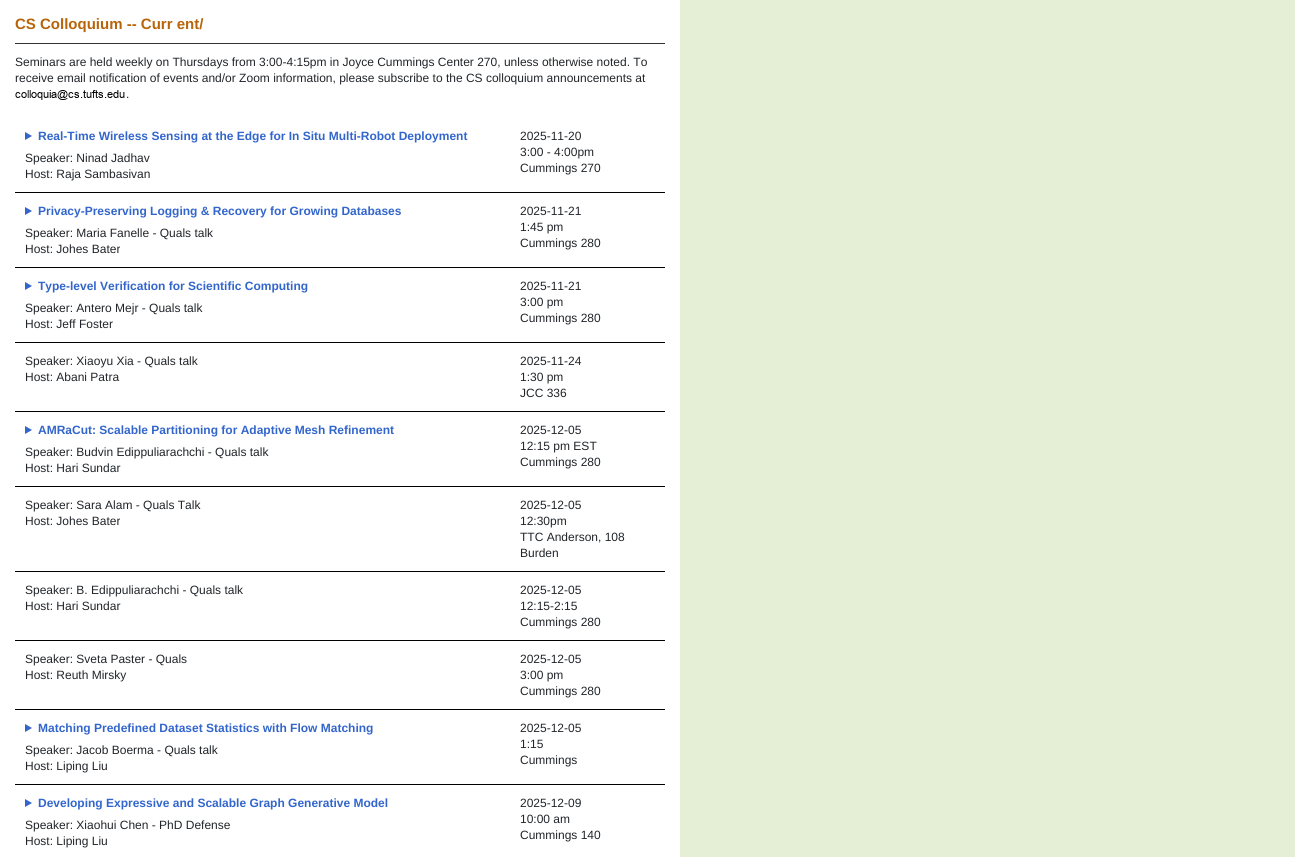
#include <cairo/cairo.h>
#include <math.h>
#include <stddef.h>

typedef struct { double x, y; const char *s; } line_t;
typedef struct { double x, y, w, h; unsigned color; } box_t;
static cairo_t *cr;

static void rgb(unsigned color)
{
	cairo_set_source_rgb(cr, (color >> 16) / 255.0, (color >> 8 & 255) / 255.0, (color & 255) / 255.0);
}

static void image(const char *path, double x, double y, double w, double h)
{
	cairo_surface_t *image = cairo_image_surface_create_from_png(path);
	cairo_save(cr);
	cairo_set_source_surface(cr, image, x, y);
	cairo_rectangle(cr, x, y, w, h);
	cairo_fill(cr);
	cairo_restore(cr);
	cairo_surface_destroy(image);
}

int main(void) {
	cairo_surface_t *surface = cairo_image_surface_create(CAIRO_FORMAT_RGB24, 1295, 857);
	cr = cairo_create(surface);
	cairo_font_options_t *options = cairo_font_options_create();
	cairo_font_options_set_hint_metrics(options, CAIRO_HINT_METRICS_OFF);
	cairo_font_options_set_hint_style(options, CAIRO_HINT_STYLE_NONE);
	cairo_set_font_options(cr, options);
	cairo_set_miter_limit(cr, 4);
	rgb(0xe5efd5);
	cairo_paint(cr);
	rgb(0xffffff);
	cairo_rectangle(cr, 0, 0, 680, 857);
	cairo_fill(cr);
	rgb(0x333333);
	cairo_rectangle(cr, 15, 43, 650, 1);
	cairo_fill(cr);
	image("img/1.png", 15, 90, 110, 10);
	rgb(0x000000);
	cairo_rectangle(cr, 15, 192, 650, 1);
	cairo_fill(cr);
	rgb(0x3366cc);
	cairo_new_path(cr);
	cairo_move_to(cr, 25, 132);
	cairo_line_to(cr, 32, 136);
	cairo_line_to(cr, 25, 140);
	cairo_close_path(cr);
	cairo_fill(cr);
	rgb(0x000000);
	cairo_rectangle(cr, 15, 267, 650, 1);
	cairo_fill(cr);
	rgb(0x3366cc);
	cairo_new_path(cr);
	cairo_move_to(cr, 25, 207);
	cairo_line_to(cr, 32, 211);
	cairo_line_to(cr, 25, 215);
	cairo_close_path(cr);
	cairo_fill(cr);
	rgb(0x000000);
	cairo_rectangle(cr, 15, 342, 650, 1);
	cairo_fill(cr);
	rgb(0x3366cc);
	cairo_new_path(cr);
	cairo_move_to(cr, 25, 282);
	cairo_line_to(cr, 32, 286);
	cairo_line_to(cr, 25, 290);
	cairo_close_path(cr);
	cairo_fill(cr);
	rgb(0x000000);
	cairo_rectangle(cr, 15, 411, 650, 1);
	cairo_fill(cr);
	cairo_rectangle(cr, 15, 486, 650, 1);
	cairo_fill(cr);
	rgb(0x3366cc);
	cairo_new_path(cr);
	cairo_move_to(cr, 25, 426);
	cairo_line_to(cr, 32, 430);
	cairo_line_to(cr, 25, 434);
	cairo_close_path(cr);
	cairo_fill(cr);
	{
		static const box_t items[] = {
			{15, 571, 650, 1, 0x000000},
			{15, 640, 650, 1, 0x000000},
			{15, 709, 650, 1, 0x000000},
			{15, 784, 650, 1, 0x000000},
		};
		for (size_t i = 0; i < sizeof items / sizeof *items; i++) {
			rgb(items[i].color);
			cairo_rectangle(cr, items[i].x, items[i].y, items[i].w, items[i].h);
			cairo_fill(cr);
		}
	}
	rgb(0x3366cc);
	cairo_new_path(cr);
	cairo_move_to(cr, 25, 724);
	cairo_line_to(cr, 32, 728);
	cairo_line_to(cr, 25, 732);
	cairo_close_path(cr);
	cairo_fill(cr);
	cairo_new_path(cr);
	cairo_move_to(cr, 25, 799);
	cairo_line_to(cr, 32, 803);
	cairo_line_to(cr, 25, 807);
	cairo_close_path(cr);
	cairo_fill(cr);
	cairo_select_font_face(cr, "Liberation Sans", CAIRO_FONT_SLANT_NORMAL, CAIRO_FONT_WEIGHT_BOLD);
	cairo_set_font_size(cr, 15);
	rgb(0xb7640a);
	cairo_move_to(cr, 15, 29);
	cairo_show_text(cr, "CS Colloquium -- Curr ent/");
	cairo_select_font_face(cr, "Liberation Sans", CAIRO_FONT_SLANT_NORMAL, CAIRO_FONT_WEIGHT_NORMAL);
	cairo_set_font_size(cr, 12);
	rgb(0x212529);
	{
		static const line_t items[] = {
			{15, 66, "Seminars are held weekly on Thursdays from 3:00-4:15pm in Joyce Cummings Center 270, unless otherwise noted. To"},
			{15, 82, "receive email notification of events and/or Zoom information, please subscribe to the CS colloquium announcements at"},
			{126, 98, "."},
		};
		for (size_t i = 0; i < sizeof items / sizeof *items; i++) {
			cairo_move_to(cr, items[i].x, items[i].y);
			cairo_show_text(cr, items[i].s);
		}
	}
	cairo_select_font_face(cr, "Liberation Sans", CAIRO_FONT_SLANT_NORMAL, CAIRO_FONT_WEIGHT_BOLD);
	rgb(0x3366cc);
	cairo_move_to(cr, 38, 140);
	cairo_show_text(cr, "Real-Time Wireless Sensing at the Edge for In Situ Multi-Robot Deployment");
	cairo_select_font_face(cr, "Liberation Sans", CAIRO_FONT_SLANT_NORMAL, CAIRO_FONT_WEIGHT_NORMAL);
	rgb(0x212529);
	{
		static const line_t items[] = {
			{25, 162, "Speaker: Ninad Jadhav"},
			{25, 178, "Host: Raja Sambasivan"},
			{520, 140, "2025-11-20"},
			{520, 156, "3:00 - 4:00pm"},
			{520, 172, "Cummings 270"},
		};
		for (size_t i = 0; i < sizeof items / sizeof *items; i++) {
			cairo_move_to(cr, items[i].x, items[i].y);
			cairo_show_text(cr, items[i].s);
		}
	}
	cairo_select_font_face(cr, "Liberation Sans", CAIRO_FONT_SLANT_NORMAL, CAIRO_FONT_WEIGHT_BOLD);
	rgb(0x3366cc);
	cairo_move_to(cr, 38, 215);
	cairo_show_text(cr, "Privacy-Preserving Logging & Recovery for Growing Databases");
	cairo_select_font_face(cr, "Liberation Sans", CAIRO_FONT_SLANT_NORMAL, CAIRO_FONT_WEIGHT_NORMAL);
	rgb(0x212529);
	{
		static const line_t items[] = {
			{25, 237, "Speaker: Maria Fanelle - Quals talk"},
			{25, 253, "Host: Johes Bater"},
			{520, 215, "2025-11-21"},
			{520, 231, "1:45 pm"},
			{520, 247, "Cummings 280"},
		};
		for (size_t i = 0; i < sizeof items / sizeof *items; i++) {
			cairo_move_to(cr, items[i].x, items[i].y);
			cairo_show_text(cr, items[i].s);
		}
	}
	cairo_select_font_face(cr, "Liberation Sans", CAIRO_FONT_SLANT_NORMAL, CAIRO_FONT_WEIGHT_BOLD);
	rgb(0x3366cc);
	cairo_move_to(cr, 38, 290);
	cairo_show_text(cr, "Type-level Verification for Scientific Computing");
	cairo_select_font_face(cr, "Liberation Sans", CAIRO_FONT_SLANT_NORMAL, CAIRO_FONT_WEIGHT_NORMAL);
	rgb(0x212529);
	{
		static const line_t items[] = {
			{25, 312, "Speaker: Antero Mejr - Quals talk"},
			{25, 328, "Host: Jeff Foster"},
			{520, 290, "2025-11-21"},
			{520, 306, "3:00 pm"},
			{520, 322, "Cummings 280"},
			{25, 365, "Speaker: Xiaoyu Xia - Quals talk"},
			{25, 381, "Host: Abani Patra"},
			{520, 365, "2025-11-24"},
			{520, 381, "1:30 pm"},
			{520, 397, "JCC 336"},
		};
		for (size_t i = 0; i < sizeof items / sizeof *items; i++) {
			cairo_move_to(cr, items[i].x, items[i].y);
			cairo_show_text(cr, items[i].s);
		}
	}
	cairo_select_font_face(cr, "Liberation Sans", CAIRO_FONT_SLANT_NORMAL, CAIRO_FONT_WEIGHT_BOLD);
	rgb(0x3366cc);
	cairo_move_to(cr, 38, 434);
	cairo_show_text(cr, "AMRaCut: Scalable Partitioning for Adaptive Mesh Refinement");
	cairo_select_font_face(cr, "Liberation Sans", CAIRO_FONT_SLANT_NORMAL, CAIRO_FONT_WEIGHT_NORMAL);
	rgb(0x212529);
	{
		static const line_t items[] = {
			{25, 456, "Speaker: Budvin Edippuliarachchi - Quals talk"},
			{25, 472, "Host: Hari Sundar"},
			{520, 434, "2025-12-05"},
			{520, 450, "12:15 pm EST"},
			{520, 466, "Cummings 280"},
			{25, 509, "Speaker: Sara Alam - Quals Talk"},
			{25, 525, "Host: Johes Bater"},
			{520, 509, "2025-12-05"},
			{520, 525, "12:30pm"},
			{520, 541, "TTC Anderson, 108"},
			{520, 557, "Burden"},
			{25, 594, "Speaker: B. Edippuliarachchi - Quals talk"},
			{25, 610, "Host: Hari Sundar"},
			{520, 594, "2025-12-05"},
			{520, 610, "12:15-2:15"},
			{520, 626, "Cummings 280"},
			{25, 663, "Speaker: Sveta Paster - Quals"},
			{25, 679, "Host: Reuth Mirsky"},
			{520, 663, "2025-12-05"},
			{520, 679, "3:00 pm"},
			{520, 695, "Cummings 280"},
		};
		for (size_t i = 0; i < sizeof items / sizeof *items; i++) {
			cairo_move_to(cr, items[i].x, items[i].y);
			cairo_show_text(cr, items[i].s);
		}
	}
	cairo_select_font_face(cr, "Liberation Sans", CAIRO_FONT_SLANT_NORMAL, CAIRO_FONT_WEIGHT_BOLD);
	rgb(0x3366cc);
	cairo_move_to(cr, 38, 732);
	cairo_show_text(cr, "Matching Predefined Dataset Statistics with Flow Matching");
	cairo_select_font_face(cr, "Liberation Sans", CAIRO_FONT_SLANT_NORMAL, CAIRO_FONT_WEIGHT_NORMAL);
	rgb(0x212529);
	{
		static const line_t items[] = {
			{25, 754, "Speaker: Jacob Boerma - Quals talk"},
			{25, 770, "Host: Liping Liu"},
			{520, 732, "2025-12-05"},
			{520, 748, "1:15"},
			{520, 764, "Cummings"},
		};
		for (size_t i = 0; i < sizeof items / sizeof *items; i++) {
			cairo_move_to(cr, items[i].x, items[i].y);
			cairo_show_text(cr, items[i].s);
		}
	}
	cairo_select_font_face(cr, "Liberation Sans", CAIRO_FONT_SLANT_NORMAL, CAIRO_FONT_WEIGHT_BOLD);
	rgb(0x3366cc);
	cairo_move_to(cr, 38, 807);
	cairo_show_text(cr, "Developing Expressive and Scalable Graph Generative Model");
	cairo_select_font_face(cr, "Liberation Sans", CAIRO_FONT_SLANT_NORMAL, CAIRO_FONT_WEIGHT_NORMAL);
	rgb(0x212529);
	{
		static const line_t items[] = {
			{25, 829, "Speaker: Xiaohui Chen - PhD Defense"},
			{25, 845, "Host: Liping Liu"},
			{520, 807, "2025-12-09"},
			{520, 823, "10:00 am"},
			{520, 839, "Cummings 140"},
		};
		for (size_t i = 0; i < sizeof items / sizeof *items; i++) {
			cairo_move_to(cr, items[i].x, items[i].y);
			cairo_show_text(cr, items[i].s);
		}
	}
	cairo_surface_write_to_png(surface, "page.png");
	cairo_font_options_destroy(options);
	cairo_destroy(cr);
	cairo_surface_destroy(surface);
	return 0;
}
